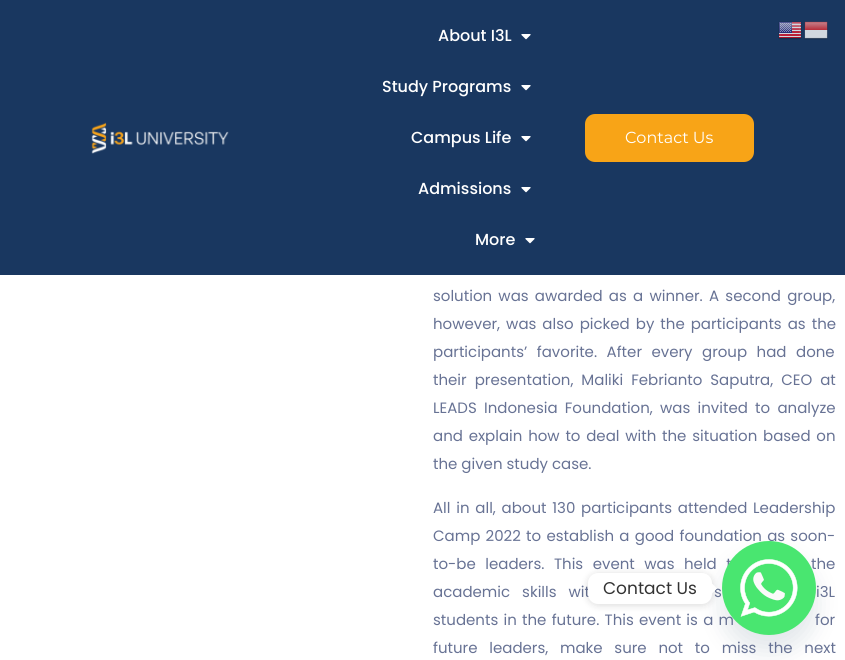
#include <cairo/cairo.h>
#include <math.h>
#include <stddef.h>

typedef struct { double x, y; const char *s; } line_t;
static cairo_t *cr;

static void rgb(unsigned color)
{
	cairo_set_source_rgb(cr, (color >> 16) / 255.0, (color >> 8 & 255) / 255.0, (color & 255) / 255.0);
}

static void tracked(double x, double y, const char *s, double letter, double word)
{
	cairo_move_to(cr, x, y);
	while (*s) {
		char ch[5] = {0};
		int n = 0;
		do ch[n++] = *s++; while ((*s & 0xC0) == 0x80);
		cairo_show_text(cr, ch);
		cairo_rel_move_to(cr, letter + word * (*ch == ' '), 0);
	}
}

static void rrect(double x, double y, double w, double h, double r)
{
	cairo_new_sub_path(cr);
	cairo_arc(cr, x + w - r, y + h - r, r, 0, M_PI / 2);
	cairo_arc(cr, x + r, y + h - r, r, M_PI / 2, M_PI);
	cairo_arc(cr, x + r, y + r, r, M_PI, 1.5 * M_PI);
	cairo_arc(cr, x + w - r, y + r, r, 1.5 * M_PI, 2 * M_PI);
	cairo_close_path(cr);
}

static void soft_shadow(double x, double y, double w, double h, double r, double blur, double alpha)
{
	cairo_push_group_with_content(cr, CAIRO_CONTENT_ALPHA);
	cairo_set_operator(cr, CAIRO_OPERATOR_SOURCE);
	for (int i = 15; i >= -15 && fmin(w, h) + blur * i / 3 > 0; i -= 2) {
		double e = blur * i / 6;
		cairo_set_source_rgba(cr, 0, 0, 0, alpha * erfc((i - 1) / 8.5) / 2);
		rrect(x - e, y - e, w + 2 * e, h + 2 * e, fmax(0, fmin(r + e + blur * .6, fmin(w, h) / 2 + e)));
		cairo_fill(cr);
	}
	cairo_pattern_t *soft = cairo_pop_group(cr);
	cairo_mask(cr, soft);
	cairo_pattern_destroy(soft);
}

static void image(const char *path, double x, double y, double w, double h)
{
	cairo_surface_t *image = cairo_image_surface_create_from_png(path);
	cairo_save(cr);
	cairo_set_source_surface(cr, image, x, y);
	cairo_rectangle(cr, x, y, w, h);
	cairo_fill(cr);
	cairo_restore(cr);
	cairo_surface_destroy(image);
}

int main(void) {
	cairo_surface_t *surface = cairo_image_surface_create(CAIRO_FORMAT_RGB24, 845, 660);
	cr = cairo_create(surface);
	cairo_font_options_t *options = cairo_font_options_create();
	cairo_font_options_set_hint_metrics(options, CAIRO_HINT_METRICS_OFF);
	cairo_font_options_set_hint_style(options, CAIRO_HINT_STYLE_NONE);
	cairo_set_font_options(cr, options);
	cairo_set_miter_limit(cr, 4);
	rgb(0xffffff);
	cairo_paint(cr);
	rgb(0x193760);
	cairo_rectangle(cr, 0, 0, 845, 275);
	cairo_fill(cr);
	image("img/1.png", 91, 122, 138, 32);
	image("img/2.png", 521, 34, 10, 6);
	image("img/2.png", 521, 85, 10, 6);
	image("img/2.png", 521, 136, 10, 6);
	image("img/2.png", 521, 187, 10, 6);
	image("img/2.png", 525, 238, 10, 6);
	rgb(0xf8a417);
	rrect(585, 114, 169, 48, 10);
	cairo_fill(cr);
	image("img/3.png", 778, 21, 24, 19);
	image("img/4.png", 804, 21, 24, 19);
	rgb(0x49687e);
	soft_shadow(722, 557, 94, 94, 47, 12, 0.16);
	cairo_select_font_face(cr, "Poppins Medium", CAIRO_FONT_SLANT_NORMAL, CAIRO_FONT_WEIGHT_NORMAL);
	cairo_set_font_size(cr, 16);
	rgb(0xffffff);
	{
		static const line_t items[] = {
			{438, 41, "About I3L"},
			{382, 92, "Study Programs"},
			{411, 143, "Campus Life"},
			{418, 194, "Admissions"},
			{475, 245, "More"},
		};
		for (size_t i = 0; i < sizeof items / sizeof *items; i++) {
			cairo_move_to(cr, items[i].x, items[i].y);
			cairo_show_text(cr, items[i].s);
		}
	}
	cairo_select_font_face(cr, "Montserrat", CAIRO_FONT_SLANT_NORMAL, CAIRO_FONT_WEIGHT_NORMAL);
	cairo_move_to(cr, 625, 143);
	cairo_show_text(cr, "Contact Us");
	cairo_select_font_face(cr, "Poppins", CAIRO_FONT_SLANT_NORMAL, CAIRO_FONT_WEIGHT_NORMAL);
	cairo_set_font_size(cr, 15);
	rgb(0x677294);
	tracked(433, 301, "solution was awarded as a winner. A second group,", 0, 2.25);
	tracked(433, 329, "however, was also picked by the participants as the", 0, 2);
	tracked(433, 357, "participants’ favorite. After every group had done", 0, 5.5);
	tracked(433, 385, "their presentation, Maliki Febrianto Saputra, CEO at", 0, 4);
	tracked(433, 413, "LEADS Indonesia Foundation, was invited to analyze", 0, 3.25);
	tracked(433, 441, "and explain how to deal with the situation based on", 0, 1.75);
	cairo_move_to(cr, 433, 469);
	cairo_show_text(cr, "the given study case.");
	tracked(433, 513, "All in all, about 130 participants attended Leadership", 0, 1.75);
	tracked(433, 541, "Camp 2022 to establish a good foundation as soon-", 0, 1.25);
	tracked(433, 569, "to-be leaders. This event was held t", 0, 5.5);
	tracked(811, 569, "the", 0, 5.5);
	{
		static const line_t items[] = {
			{433, 597, "academic skills wit"},
			{714, 597, "s"},
			{816, 597, "i3L"},
		};
		for (size_t i = 0; i < sizeof items / sizeof *items; i++) {
			tracked(items[i].x, items[i].y, items[i].s, 0, 8);
		}
	}
	tracked(433, 625, "students in the future. This event is a m", 0, 1.25);
	tracked(815, 625, "for", 0, 1.25);
	tracked(433, 653, "future leaders, make sure not to miss the next", 0, 7.75);
	image("img/5.png", 722, 541, 94, 94);
	rgb(0x000000);
	soft_shadow(588, 574, 124, 31, 10, 4, 0.15);
	rgb(0xffffff);
	cairo_new_path(cr);
	cairo_move_to(cr, 712, 593.5);
	cairo_line_to(cr, 712, 583.5);
	cairo_line_to(cr, 717, 588.5);
	cairo_close_path(cr);
	cairo_fill(cr);
	rrect(588, 573, 124, 31, 10);
	cairo_fill(cr);
	cairo_set_font_size(cr, 17);
	rgb(0x333333);
	cairo_move_to(cr, 603, 594);
	cairo_show_text(cr, "Contact Us");
	cairo_surface_write_to_png(surface, "page.png");
	cairo_font_options_destroy(options);
	cairo_destroy(cr);
	cairo_surface_destroy(surface);
	return 0;
}
